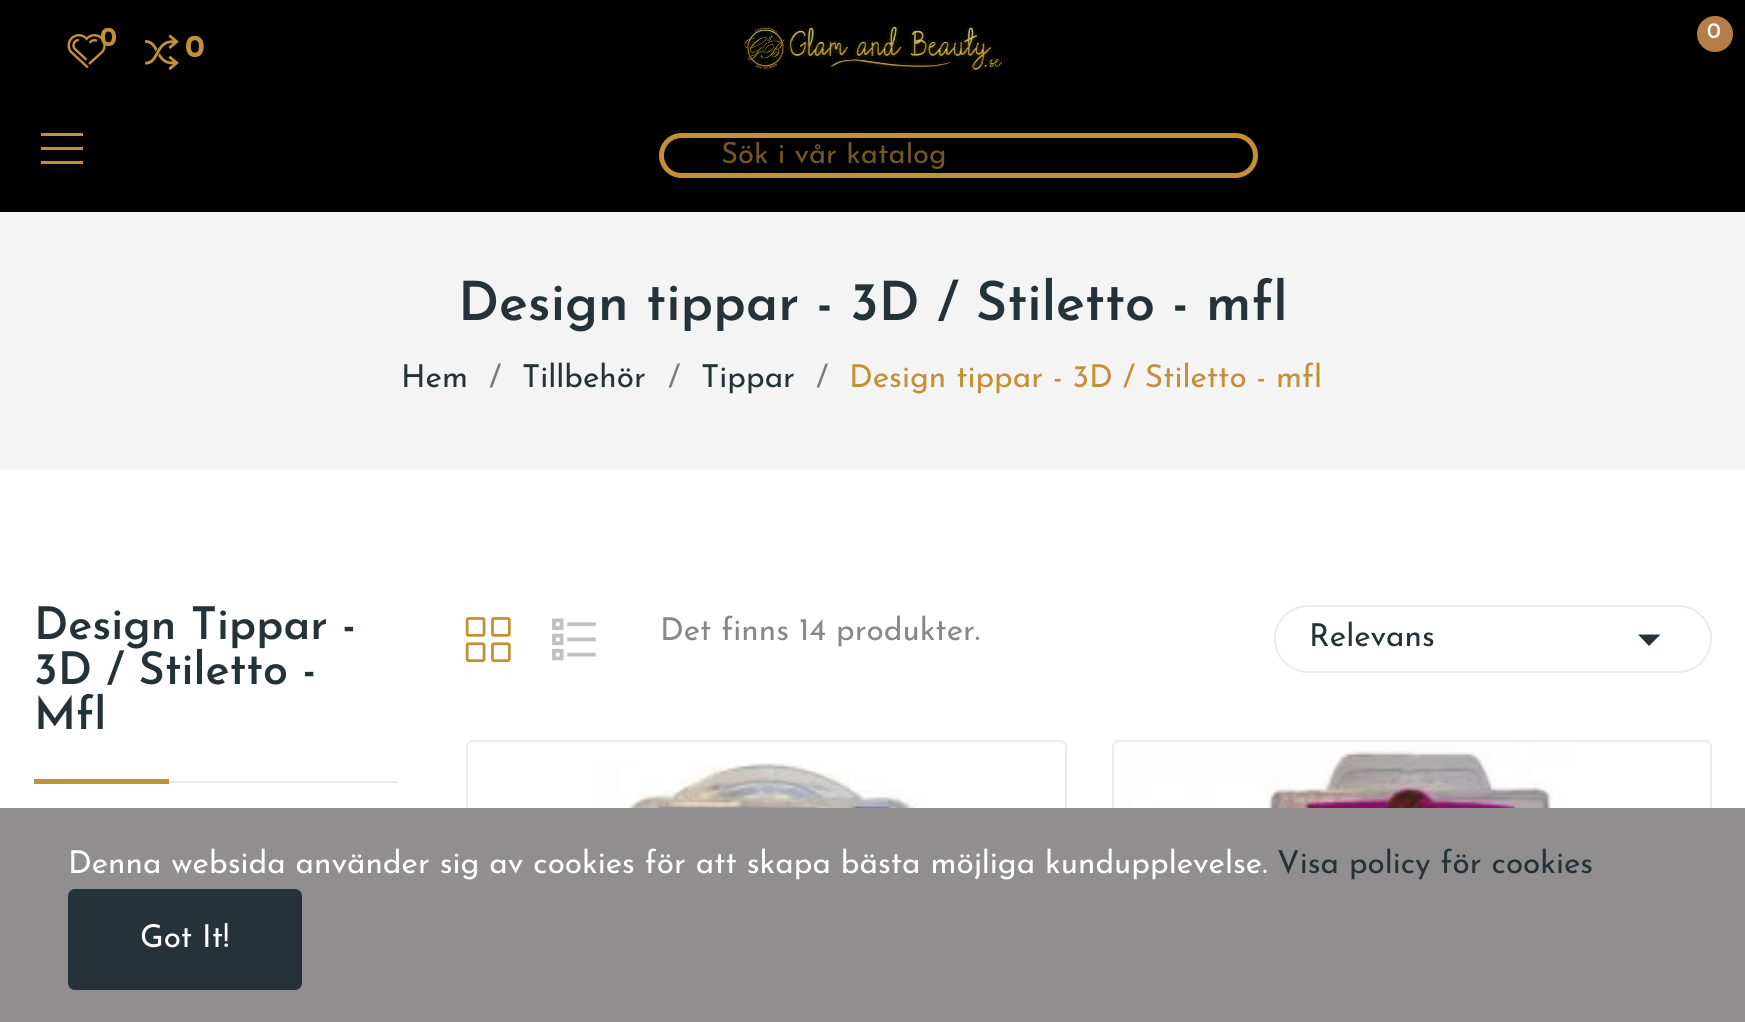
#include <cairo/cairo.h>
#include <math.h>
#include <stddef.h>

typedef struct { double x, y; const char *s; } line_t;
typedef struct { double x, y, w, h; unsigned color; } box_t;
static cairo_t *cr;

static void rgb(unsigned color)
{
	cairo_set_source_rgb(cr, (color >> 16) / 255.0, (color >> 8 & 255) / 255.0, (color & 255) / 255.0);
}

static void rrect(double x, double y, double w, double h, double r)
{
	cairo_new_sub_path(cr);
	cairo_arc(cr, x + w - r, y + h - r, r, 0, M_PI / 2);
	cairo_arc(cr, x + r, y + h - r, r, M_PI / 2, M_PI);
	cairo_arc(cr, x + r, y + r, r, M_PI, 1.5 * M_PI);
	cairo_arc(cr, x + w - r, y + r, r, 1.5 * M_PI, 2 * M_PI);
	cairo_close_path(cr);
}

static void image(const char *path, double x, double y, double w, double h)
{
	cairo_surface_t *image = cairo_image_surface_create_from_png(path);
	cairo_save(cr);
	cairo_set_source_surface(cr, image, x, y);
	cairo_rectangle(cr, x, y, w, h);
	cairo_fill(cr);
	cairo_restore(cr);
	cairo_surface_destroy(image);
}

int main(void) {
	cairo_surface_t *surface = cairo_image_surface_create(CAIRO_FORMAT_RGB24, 1745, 1022);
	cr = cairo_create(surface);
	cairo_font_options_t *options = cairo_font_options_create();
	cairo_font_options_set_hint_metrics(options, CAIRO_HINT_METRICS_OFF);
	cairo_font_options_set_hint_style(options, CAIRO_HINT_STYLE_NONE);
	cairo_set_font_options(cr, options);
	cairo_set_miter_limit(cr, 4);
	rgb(0xffffff);
	cairo_paint(cr);
	rgb(0x000000);
	cairo_rectangle(cr, 0, 0, 1745, 212);
	cairo_fill(cr);
	image("img/1.png", 67, 34, 39, 35);
	image("img/2.png", 145, 34, 34, 37);
	image("img/3.png", 743, 25, 259, 47);
	rgb(0xb77d47);
	cairo_arc(cr, 1715, 34, 18, 0, 2 * M_PI);
	cairo_fill(cr);
	rgb(0xc39036);
	cairo_new_path(cr);
	cairo_move_to(cr, 41, 133);
	cairo_line_to(cr, 41, 136);
	cairo_line_to(cr, 83, 136);
	cairo_line_to(cr, 83, 133);
	cairo_close_path(cr);
	cairo_move_to(cr, 41, 147);
	cairo_line_to(cr, 41, 150);
	cairo_line_to(cr, 83, 150);
	cairo_line_to(cr, 83, 147);
	cairo_close_path(cr);
	cairo_move_to(cr, 41, 161);
	cairo_line_to(cr, 41, 164);
	cairo_line_to(cr, 83, 164);
	cairo_line_to(cr, 83, 161);
	cairo_close_path(cr);
	cairo_fill(cr);
	rrect(661.5, 135.5, 594, 40, 20);
	cairo_set_line_width(cr, 5);
	cairo_stroke(cr);
	{
		static const box_t items[] = {
			{0, 212, 1745, 258, 0xf4f4f4},
			{169, 781, 229, 2, 0xebebeb},
			{34, 779, 135, 5, 0xc39036},
		};
		for (size_t i = 0; i < sizeof items / sizeof *items; i++) {
			rgb(items[i].color);
			cairo_rectangle(cr, items[i].x, items[i].y, items[i].w, items[i].h);
			cairo_fill(cr);
		}
	}
	image("img/4.png", 465, 617, 46, 46);
	image("img/5.png", 552, 618, 44, 43);
	rrect(1275, 606, 436, 66, 33);
	rgb(0xebebeb);
	cairo_set_line_width(cr, 2);
	cairo_stroke(cr);
	rgb(0x253237);
	cairo_new_path(cr);
	cairo_move_to(cr, 1638, 634.5);
	cairo_line_to(cr, 1660.5, 634.5);
	cairo_line_to(cr, 1649, 646);
	cairo_close_path(cr);
	cairo_fill(cr);
	rrect(467, 741, 599, 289, 6);
	rgb(0xebebeb);
	cairo_stroke(cr);
	image("img/6.png", 592, 761, 340, 47);
	rrect(1113, 741, 598, 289, 6);
	cairo_stroke(cr);
	image("img/7.png", 1114, 743, 462, 65);
	rgb(0x908e8f);
	cairo_rectangle(cr, 0, 808, 1745, 214);
	cairo_fill(cr);
	rgb(0x253237);
	rrect(70.5, 891.5, 229, 96, 4.5);
	cairo_fill_preserve(cr);
	cairo_set_line_width(cr, 5);
	cairo_stroke(cr);
	cairo_select_font_face(cr, "Josefin Sans", CAIRO_FONT_SLANT_NORMAL, CAIRO_FONT_WEIGHT_BOLD);
	cairo_set_font_size(cr, 27);
	rgb(0xc39036);
	cairo_move_to(cr, 100, 46);
	cairo_show_text(cr, "0");
	cairo_set_font_size(cr, 31.5);
	cairo_move_to(cr, 185, 57);
	cairo_show_text(cr, "0");
	cairo_select_font_face(cr, "Josefin Sans Medium", CAIRO_FONT_SLANT_NORMAL, CAIRO_FONT_WEIGHT_NORMAL);
	cairo_set_font_size(cr, 22);
	rgb(0xffffff);
	cairo_move_to(cr, 1707, 38);
	cairo_show_text(cr, "0");
	cairo_save(cr);
	cairo_rectangle(cr, 720, 142, 479, 29);
	cairo_clip(cr);
	cairo_select_font_face(cr, "Josefin Sans", CAIRO_FONT_SLANT_NORMAL, CAIRO_FONT_WEIGHT_NORMAL);
	cairo_set_font_size(cr, 29.25);
	rgb(0x755620);
	cairo_move_to(cr, 721, 163);
	cairo_show_text(cr, "Sök i vår katalog");
	cairo_restore(cr);
	cairo_select_font_face(cr, "Josefin Sans SemiBold", CAIRO_FONT_SLANT_NORMAL, CAIRO_FONT_WEIGHT_NORMAL);
	cairo_set_font_size(cr, 54);
	rgb(0x253237);
	cairo_move_to(cr, 458, 320);
	cairo_show_text(cr, "Design tippar - 3D / Stiletto - mfl");
	cairo_select_font_face(cr, "Josefin Sans", CAIRO_FONT_SLANT_NORMAL, CAIRO_FONT_WEIGHT_NORMAL);
	cairo_set_font_size(cr, 31.5);
	cairo_move_to(cr, 401, 387);
	cairo_show_text(cr, "Hem");
	rgb(0x7a7a7a);
	cairo_move_to(cr, 489, 387);
	cairo_show_text(cr, "/");
	rgb(0x253237);
	cairo_move_to(cr, 522, 387);
	cairo_show_text(cr, "Tillbehör");
	rgb(0x7a7a7a);
	cairo_move_to(cr, 668, 387);
	cairo_show_text(cr, "/");
	rgb(0x253237);
	cairo_move_to(cr, 701, 387);
	cairo_show_text(cr, "Tippar");
	rgb(0x7a7a7a);
	cairo_move_to(cr, 816, 387);
	cairo_show_text(cr, "/");
	rgb(0xc39036);
	cairo_move_to(cr, 849, 387);
	cairo_show_text(cr, "Design tippar - 3D / Stiletto - mfl");
	cairo_select_font_face(cr, "Josefin Sans SemiBold", CAIRO_FONT_SLANT_NORMAL, CAIRO_FONT_WEIGHT_NORMAL);
	cairo_set_font_size(cr, 45);
	rgb(0x253237);
	{
		static const line_t items[] = {
			{34, 639, "Design Tippar -"},
			{34, 684, "3D / Stiletto -"},
			{34, 729, "Mfl"},
		};
		for (size_t i = 0; i < sizeof items / sizeof *items; i++) {
			cairo_move_to(cr, items[i].x, items[i].y);
			cairo_show_text(cr, items[i].s);
		}
	}
	cairo_select_font_face(cr, "Josefin Sans", CAIRO_FONT_SLANT_NORMAL, CAIRO_FONT_WEIGHT_NORMAL);
	cairo_set_font_size(cr, 31.5);
	rgb(0x888888);
	cairo_move_to(cr, 660, 640);
	cairo_show_text(cr, "Det finns 14 produkter.");
	rgb(0x253237);
	cairo_move_to(cr, 1309, 646);
	cairo_show_text(cr, "Relevans");
	rgb(0xffffff);
	cairo_move_to(cr, 68, 873);
	cairo_show_text(cr, "Denna websida använder sig av cookies för att skapa bästa möjliga kundupplevelse.");
	rgb(0x253237);
	cairo_move_to(cr, 1277, 873);
	cairo_show_text(cr, "Visa policy för cookies");
	rgb(0xffffff);
	cairo_move_to(cr, 140, 947);
	cairo_show_text(cr, "Got It!");
	cairo_surface_write_to_png(surface, "page.png");
	cairo_font_options_destroy(options);
	cairo_destroy(cr);
	cairo_surface_destroy(surface);
	return 0;
}
